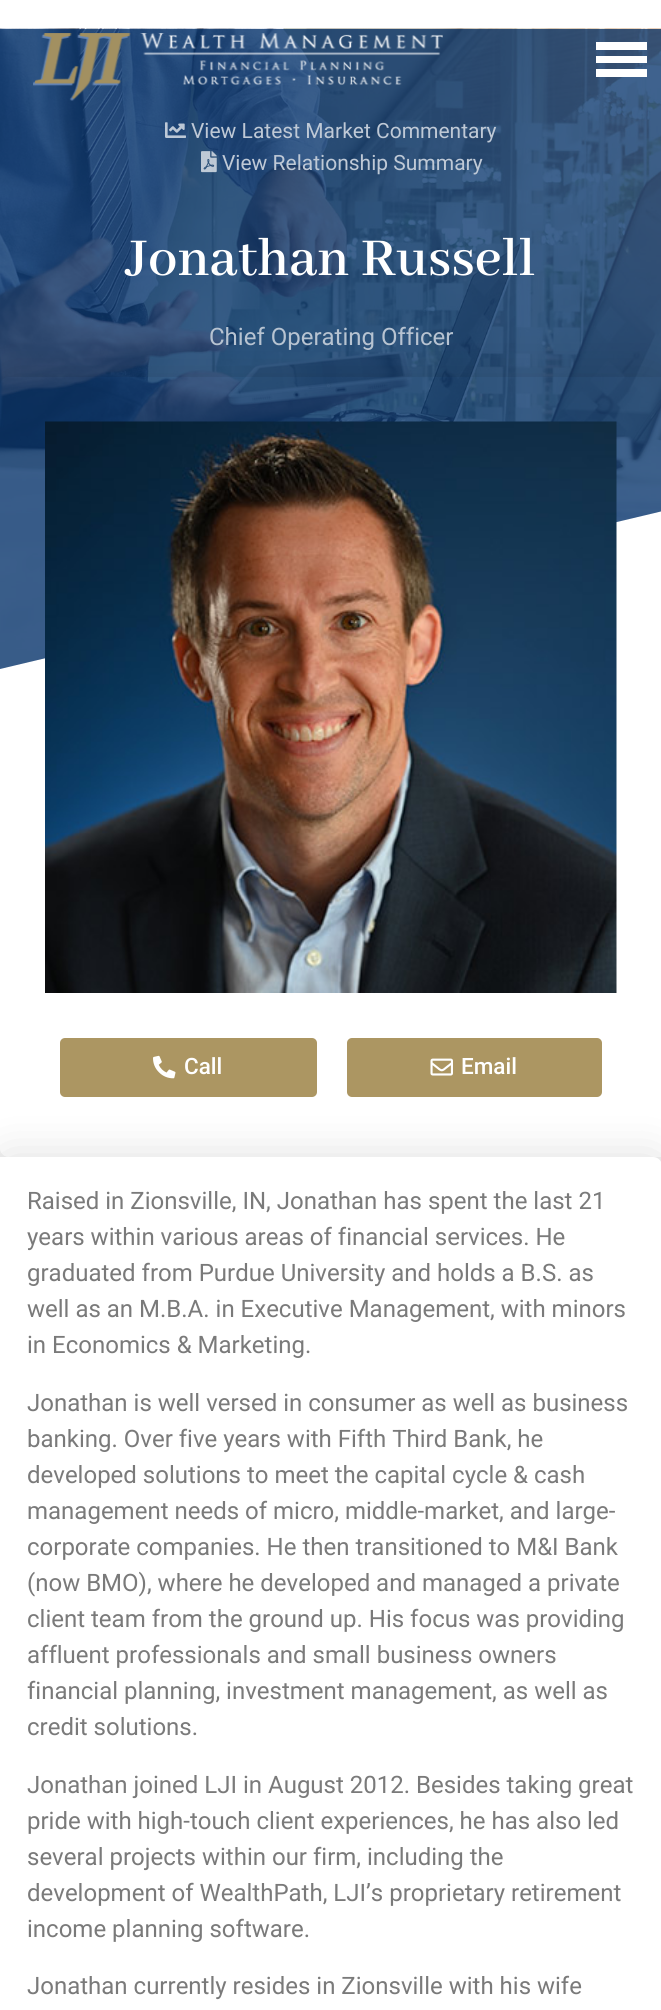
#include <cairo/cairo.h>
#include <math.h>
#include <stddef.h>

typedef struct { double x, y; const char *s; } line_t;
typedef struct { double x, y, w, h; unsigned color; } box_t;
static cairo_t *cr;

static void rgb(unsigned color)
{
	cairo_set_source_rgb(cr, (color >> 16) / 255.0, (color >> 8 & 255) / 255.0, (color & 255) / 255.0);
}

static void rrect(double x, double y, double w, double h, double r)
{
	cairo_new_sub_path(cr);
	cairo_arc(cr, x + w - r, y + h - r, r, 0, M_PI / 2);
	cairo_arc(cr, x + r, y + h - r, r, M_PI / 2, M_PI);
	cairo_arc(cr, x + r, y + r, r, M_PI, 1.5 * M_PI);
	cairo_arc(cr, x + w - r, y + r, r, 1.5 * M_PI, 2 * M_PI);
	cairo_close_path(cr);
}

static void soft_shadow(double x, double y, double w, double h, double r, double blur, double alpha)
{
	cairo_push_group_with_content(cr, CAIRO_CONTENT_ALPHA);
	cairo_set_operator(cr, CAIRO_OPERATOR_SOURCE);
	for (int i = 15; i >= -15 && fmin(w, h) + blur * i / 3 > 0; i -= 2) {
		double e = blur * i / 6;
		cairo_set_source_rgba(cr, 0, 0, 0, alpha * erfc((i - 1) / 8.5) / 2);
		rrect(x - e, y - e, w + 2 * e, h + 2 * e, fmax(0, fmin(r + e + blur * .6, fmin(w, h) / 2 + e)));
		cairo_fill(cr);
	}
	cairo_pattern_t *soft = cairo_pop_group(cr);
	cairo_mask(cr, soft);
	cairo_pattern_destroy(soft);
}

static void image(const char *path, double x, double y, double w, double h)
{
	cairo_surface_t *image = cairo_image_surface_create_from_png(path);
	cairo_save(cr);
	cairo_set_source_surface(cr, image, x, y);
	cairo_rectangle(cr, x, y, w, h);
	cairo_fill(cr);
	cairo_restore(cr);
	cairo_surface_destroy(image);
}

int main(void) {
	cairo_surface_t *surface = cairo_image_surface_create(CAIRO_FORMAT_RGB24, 661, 2010);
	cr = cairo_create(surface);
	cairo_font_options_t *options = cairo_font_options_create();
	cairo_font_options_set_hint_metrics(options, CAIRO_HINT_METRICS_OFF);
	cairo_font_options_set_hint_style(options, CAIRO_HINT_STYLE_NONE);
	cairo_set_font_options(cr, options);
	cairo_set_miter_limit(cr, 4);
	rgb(0xffffff);
	cairo_paint(cr);
	image("img/4.png", 0, 28, 661, 641);
	image("img/1.png", 33, 33, 410, 68);
	{
		static const box_t items[] = {
			{596, 56, 51, 7, 0xffffff},
			{596, 42, 51, 8, 0xffffff},
			{596, 69, 51, 8, 0xffffff},
		};
		for (size_t i = 0; i < sizeof items / sizeof *items; i++) {
			rgb(items[i].color);
			cairo_rectangle(cr, items[i].x, items[i].y, items[i].w, items[i].h);
			cairo_fill(cr);
		}
	}
	image("img/2.png", 165, 122, 21, 16);
	image("img/3.png", 201, 151, 16, 22);
	cairo_save(cr);
	cairo_rectangle(cr, 0, 510, 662, 168);
	cairo_clip(cr);
	cairo_new_path(cr);
	cairo_move_to(cr, 0, 669);
	cairo_line_to(cr, 0, 679);
	cairo_line_to(cr, 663, 679);
	cairo_line_to(cr, 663, 511);
	cairo_close_path(cr);
	cairo_fill(cr);
	cairo_restore(cr);
	cairo_save(cr);
	cairo_set_fill_rule(cr, CAIRO_FILL_RULE_EVEN_ODD);
	cairo_new_path(cr);
	cairo_move_to(cr, 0, 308);
	cairo_line_to(cr, 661, 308);
	cairo_line_to(cr, 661, 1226);
	cairo_line_to(cr, 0, 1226);
	cairo_close_path(cr);
	cairo_move_to(cr, 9, 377);
	cairo_line_to(cr, 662, 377);
	cairo_line_to(cr, 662, 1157);
	cairo_line_to(cr, 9, 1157);
	cairo_curve_to(cr, 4, 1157, 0, 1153, 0, 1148);
	cairo_line_to(cr, 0, 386);
	cairo_curve_to(cr, 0, 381, 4, 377, 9, 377);
	cairo_close_path(cr);
	cairo_clip(cr);
	rgb(0x000000);
	soft_shadow(0, 377, 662, 780, 9, 22.5, 0.13);
	cairo_restore(cr);
	image("img/5.png", 45, 421, 572, 572);
	rgb(0xac9662);
	rrect(60, 1038, 257, 59, 5);
	cairo_fill(cr);
	image("img/6.png", 153, 1055, 23, 24);
	rrect(347, 1038, 255, 59, 5);
	cairo_fill(cr);
	image("img/7.png", 430, 1058, 23, 18);
	rgb(0x000000);
	soft_shadow(0, 1157, 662, 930, 9, 22.5, 0.13);
	rgb(0xffffff);
	cairo_new_path(cr);
	cairo_move_to(cr, 0, 1157);
	cairo_line_to(cr, 653, 1157);
	cairo_curve_to(cr, 658, 1157, 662, 1161, 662, 1166);
	cairo_line_to(cr, 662, 2010);
	cairo_curve_to(cr, 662, 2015, 658, 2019, 653, 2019);
	cairo_line_to(cr, 0, 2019);
	cairo_close_path(cr);
	cairo_fill(cr);
	cairo_select_font_face(cr, "Roboto", CAIRO_FONT_SLANT_NORMAL, CAIRO_FONT_WEIGHT_NORMAL);
	cairo_set_font_size(cr, 21);
	rgb(0xbfc9d6);
	cairo_move_to(cr, 191, 138);
	cairo_show_text(cr, "View Latest Market Commentary");
	cairo_move_to(cr, 222, 170);
	cairo_show_text(cr, "View Relationship Summary");
	cairo_select_font_face(cr, "Abhaya Libre SemiBold SemiBold", CAIRO_FONT_SLANT_NORMAL, CAIRO_FONT_WEIGHT_NORMAL);
	cairo_set_font_size(cr, 58.5);
	rgb(0xffffff);
	cairo_move_to(cr, 126, 275);
	cairo_show_text(cr, "Jonathan Russell");
	cairo_select_font_face(cr, "Roboto", CAIRO_FONT_SLANT_NORMAL, CAIRO_FONT_WEIGHT_NORMAL);
	cairo_set_font_size(cr, 24);
	rgb(0xb7c3d1);
	cairo_move_to(cr, 209, 345);
	cairo_show_text(cr, "Chief Operating Officer");
	cairo_select_font_face(cr, "Roboto Medium", CAIRO_FONT_SLANT_NORMAL, CAIRO_FONT_WEIGHT_NORMAL);
	cairo_set_font_size(cr, 22.5);
	rgb(0xffffff);
	cairo_move_to(cr, 184, 1074);
	cairo_show_text(cr, "Call");
	cairo_move_to(cr, 461, 1074);
	cairo_show_text(cr, "Email");
	cairo_select_font_face(cr, "Roboto", CAIRO_FONT_SLANT_NORMAL, CAIRO_FONT_WEIGHT_NORMAL);
	cairo_set_font_size(cr, 24);
	rgb(0x7a7a7a);
	{
		static const line_t items[] = {
			{27, 1209, "Raised in Zionsville, IN, Jonathan has spent the last 21"},
			{27, 1245, "years within various areas of financial services. He"},
			{27, 1281, "graduated from Purdue University and holds a B.S. as"},
			{27, 1317, "well as an M.B.A. in Executive Management, with minors"},
			{27, 1353, "in Economics & Marketing."},
			{27, 1411, "Jonathan is well versed in consumer as well as business"},
			{27, 1447, "banking. Over five years with Fifth Third Bank, he"},
			{27, 1483, "developed solutions to meet the capital cycle & cash"},
			{27, 1519, "management needs of micro, middle-market, and large-"},
			{27, 1555, "corporate companies. He then transitioned to M&I Bank"},
			{27, 1591, "(now BMO), where he developed and managed a private"},
			{27, 1627, "client team from the ground up. His focus was providing"},
			{27, 1663, "affluent professionals and small business owners"},
			{27, 1699, "financial planning, investment management, as well as"},
			{27, 1735, "credit solutions."},
			{27, 1793, "Jonathan joined LJI in August 2012. Besides taking great"},
			{27, 1829, "pride with high-touch client experiences, he has also led"},
			{27, 1865, "several projects within our firm, including the"},
			{27, 1901, "development of WealthPath, LJI’s proprietary retirement"},
			{27, 1937, "income planning software."},
			{27, 1994, "Jonathan currently resides in Zionsville with his wife"},
		};
		for (size_t i = 0; i < sizeof items / sizeof *items; i++) {
			cairo_move_to(cr, items[i].x, items[i].y);
			cairo_show_text(cr, items[i].s);
		}
	}
	cairo_surface_write_to_png(surface, "page.png");
	cairo_font_options_destroy(options);
	cairo_destroy(cr);
	cairo_surface_destroy(surface);
	return 0;
}
